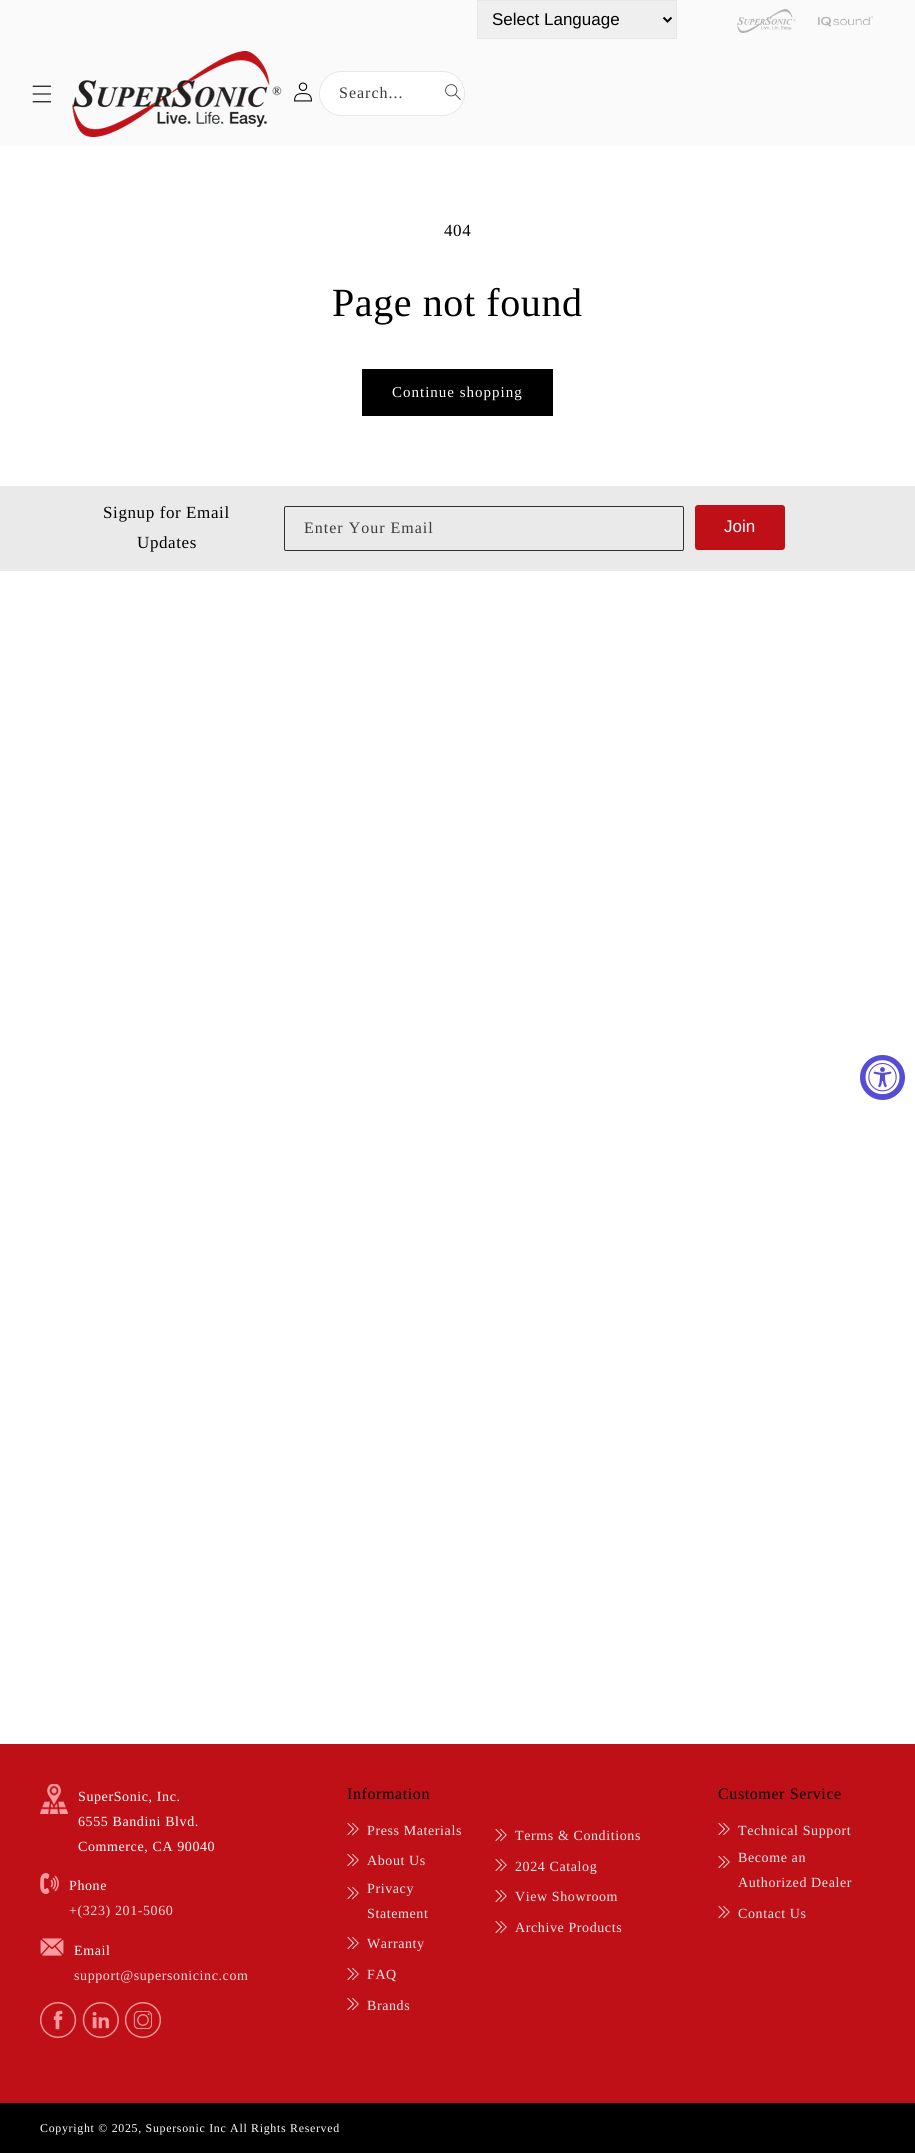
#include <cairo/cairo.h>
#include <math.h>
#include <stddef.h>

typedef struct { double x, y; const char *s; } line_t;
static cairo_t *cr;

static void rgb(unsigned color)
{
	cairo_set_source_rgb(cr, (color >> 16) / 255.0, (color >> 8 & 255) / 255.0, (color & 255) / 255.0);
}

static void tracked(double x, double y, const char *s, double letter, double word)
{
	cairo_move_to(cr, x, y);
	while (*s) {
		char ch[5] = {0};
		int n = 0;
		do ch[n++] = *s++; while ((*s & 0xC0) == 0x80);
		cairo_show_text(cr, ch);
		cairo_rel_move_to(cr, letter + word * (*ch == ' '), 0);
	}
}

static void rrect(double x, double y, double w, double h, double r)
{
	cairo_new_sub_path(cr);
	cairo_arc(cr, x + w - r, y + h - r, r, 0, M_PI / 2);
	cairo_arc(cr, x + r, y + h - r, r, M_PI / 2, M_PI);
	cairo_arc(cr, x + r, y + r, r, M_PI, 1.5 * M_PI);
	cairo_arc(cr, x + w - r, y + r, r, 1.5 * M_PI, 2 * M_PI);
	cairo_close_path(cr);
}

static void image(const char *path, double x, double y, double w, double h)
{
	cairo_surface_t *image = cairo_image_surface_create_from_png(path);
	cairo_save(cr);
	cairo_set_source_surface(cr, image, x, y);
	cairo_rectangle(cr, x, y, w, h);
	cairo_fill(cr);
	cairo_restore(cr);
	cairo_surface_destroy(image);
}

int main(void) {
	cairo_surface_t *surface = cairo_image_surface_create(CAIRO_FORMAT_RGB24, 915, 2153);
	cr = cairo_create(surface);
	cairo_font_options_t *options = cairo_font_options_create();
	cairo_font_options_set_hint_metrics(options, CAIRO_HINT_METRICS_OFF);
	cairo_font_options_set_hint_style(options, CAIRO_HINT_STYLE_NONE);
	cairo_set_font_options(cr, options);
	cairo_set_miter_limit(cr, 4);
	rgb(0xffffff);
	cairo_paint(cr);
	rgb(0xfafafa);
	cairo_rectangle(cr, 0, 0, 915, 146);
	cairo_fill(cr);
	rgb(0xefefef);
	cairo_rectangle(cr, 477.5, 0.5, 199, 38);
	cairo_fill_preserve(cr);
	rgb(0xe8e8e1);
	cairo_set_line_width(cr, 1);
	cairo_stroke(cr);
	cairo_new_path(cr);
	cairo_move_to(cr, 663.5, 17.5);
	cairo_line_to(cr, 667.5, 21.5);
	cairo_line_to(cr, 671.5, 17.5);
	rgb(0x000000);
	cairo_set_line_width(cr, 2);
	cairo_stroke(cr);
	image("img/1.png", 737, 9, 59, 24);
	image("img/2.png", 818, 16, 55, 11);
	image("img/3.png", 32, 85, 20, 18);
	image("img/4.png", 72, 51, 210, 86);
	image("img/5.png", 294, 82, 18, 20);
	rgb(0xffffff);
	rrect(319.5, 71.5, 145, 44, 22);
	cairo_fill_preserve(cr);
	rgb(0xe8e8e1);
	cairo_set_line_width(cr, 1);
	cairo_stroke(cr);
	image("img/6.png", 445, 84, 16, 16);
	rgb(0x000000);
	cairo_rectangle(cr, 362, 369, 191, 47);
	cairo_fill(cr);
	rgb(0xeaeaea);
	cairo_rectangle(cr, 0, 486, 915, 85);
	cairo_fill(cr);
	rrect(284.5, 506.5, 399, 44, 1.5);
	rgb(0x303030);
	cairo_stroke(cr);
	rgb(0xbe1016);
	rrect(695, 505, 90, 45, 3);
	cairo_fill(cr);
	rgb(0x574cd5);
	cairo_arc(cr, 882.5, 1077.5, 22.5, 0, 2 * M_PI);
	cairo_fill(cr);
	image("img/7.png", 865, 1060, 35, 35);
	rgb(0xbe1016);
	cairo_rectangle(cr, 0, 1744, 915, 359);
	cairo_fill(cr);
	image("img/8.png", 40, 1784, 28, 30);
	image("img/9.png", 40, 1873, 19, 21);
	image("img/10.png", 40, 1938, 24, 18);
	image("img/11.png", 40, 2002, 37, 36);
	image("img/12.png", 82, 2002, 37, 36);
	image("img/13.png", 124, 2002, 37, 36);
	image("img/14.png", 347, 1823, 12, 12);
	image("img/14.png", 347, 1854, 12, 12);
	image("img/14.png", 347, 1887, 12, 12);
	image("img/14.png", 347, 1937, 12, 12);
	image("img/14.png", 347, 1968, 12, 12);
	image("img/14.png", 347, 1998, 12, 12);
	image("img/14.png", 495, 1829, 12, 12);
	image("img/14.png", 495, 1859, 12, 12);
	image("img/14.png", 495, 1890, 12, 12);
	image("img/14.png", 495, 1921, 12, 12);
	image("img/14.png", 718, 1823, 12, 12);
	image("img/14.png", 718, 1856, 12, 12);
	image("img/14.png", 718, 1906, 12, 12);
	rgb(0x000000);
	cairo_rectangle(cr, 0, 2103, 915, 50);
	cairo_fill(cr);
	cairo_select_font_face(cr, "Liberation Sans", CAIRO_FONT_SLANT_NORMAL, CAIRO_FONT_WEIGHT_NORMAL);
	cairo_set_font_size(cr, 17);
	cairo_move_to(cr, 492, 25);
	cairo_show_text(cr, "Select Language");
	cairo_select_font_face(cr, "Liberation Serif", CAIRO_FONT_SLANT_NORMAL, CAIRO_FONT_WEIGHT_NORMAL);
	cairo_set_font_size(cr, 16);
	rgb(0x3b3b3b);
	tracked(339, 98, "Search...", 1, 0);
	cairo_set_font_size(cr, 17);
	rgb(0x000000);
	tracked(444, 236, "404", 0.6, 0);
	cairo_set_font_size(cr, 40);
	tracked(332, 316, "Page not found", 0.6, 0);
	cairo_set_font_size(cr, 15);
	rgb(0xffffff);
	tracked(392, 397, "Continue shopping", 1, 0);
	cairo_set_font_size(cr, 17);
	rgb(0x000000);
	tracked(103, 518, "Signup for Email", 0.6, 0);
	tracked(137, 548, "Updates", 0.6, 0);
	cairo_select_font_face(cr, "Liberation Sans", CAIRO_FONT_SLANT_NORMAL, CAIRO_FONT_WEIGHT_NORMAL);
	rgb(0xffffff);
	cairo_move_to(cr, 724, 532);
	cairo_show_text(cr, "Join");
	cairo_select_font_face(cr, "Liberation Serif", CAIRO_FONT_SLANT_NORMAL, CAIRO_FONT_WEIGHT_NORMAL);
	cairo_set_font_size(cr, 16);
	rgb(0x3b3b3b);
	tracked(304, 533, "Enter Your Email", 1, 0);
	cairo_set_font_size(cr, 14);
	rgb(0xffffff);
	{
		static const line_t items[] = {
			{78, 1801, "SuperSonic, Inc."},
			{78, 1826, "6555 Bandini Blvd."},
			{78, 1851, "Commerce, CA 90040"},
			{69, 1890, "Phone"},
		};
		for (size_t i = 0; i < sizeof items / sizeof *items; i++) {
			tracked(items[i].x, items[i].y, items[i].s, 0.6, 0);
		}
	}
	rgb(0xf5dbdc);
	tracked(69, 1915, "+(323) 201-5060", 0.6, 0);
	rgb(0xffffff);
	tracked(74, 1955, "Email", 0.6, 0);
	rgb(0xf5dbdc);
	tracked(74, 1980, "support@supersonicinc.com", 0.6, 0);
	cairo_set_font_size(cr, 16);
	rgb(0x000000);
	tracked(347, 1799, "Information", 0.6, 0);
	cairo_set_font_size(cr, 14);
	rgb(0xeaeaea);
	{
		static const line_t items[] = {
			{367, 1835, "Press Materials"},
			{367, 1865, "About Us"},
			{367, 1893, "Privacy"},
			{367, 1918, "Statement"},
			{367, 1948, "Warranty"},
			{367, 1979, "FAQ"},
			{367, 2010, "Brands"},
			{515, 1840, "Terms & Conditions"},
			{515, 1871, "2024 Catalog"},
			{515, 1901, "View Showroom"},
			{515, 1932, "Archive Products"},
		};
		for (size_t i = 0; i < sizeof items / sizeof *items; i++) {
			tracked(items[i].x, items[i].y, items[i].s, 0.6, 0);
		}
	}
	cairo_set_font_size(cr, 16);
	rgb(0x000000);
	tracked(718, 1799, "Customer Service", 0.6, 0);
	cairo_set_font_size(cr, 14);
	rgb(0xeaeaea);
	{
		static const line_t items[] = {
			{738, 1835, "Technical Support"},
			{738, 1862, "Become an"},
			{738, 1887, "Authorized Dealer"},
			{738, 1918, "Contact Us"},
		};
		for (size_t i = 0; i < sizeof items / sizeof *items; i++) {
			tracked(items[i].x, items[i].y, items[i].s, 0.6, 0);
		}
	}
	cairo_set_font_size(cr, 11.9);
	rgb(0xffffff);
	tracked(40, 2132, "Copyright © 2025, Supersonic Inc All Rights Reserved", 0.7, 0);
	cairo_surface_write_to_png(surface, "page.png");
	cairo_font_options_destroy(options);
	cairo_destroy(cr);
	cairo_surface_destroy(surface);
	return 0;
}
